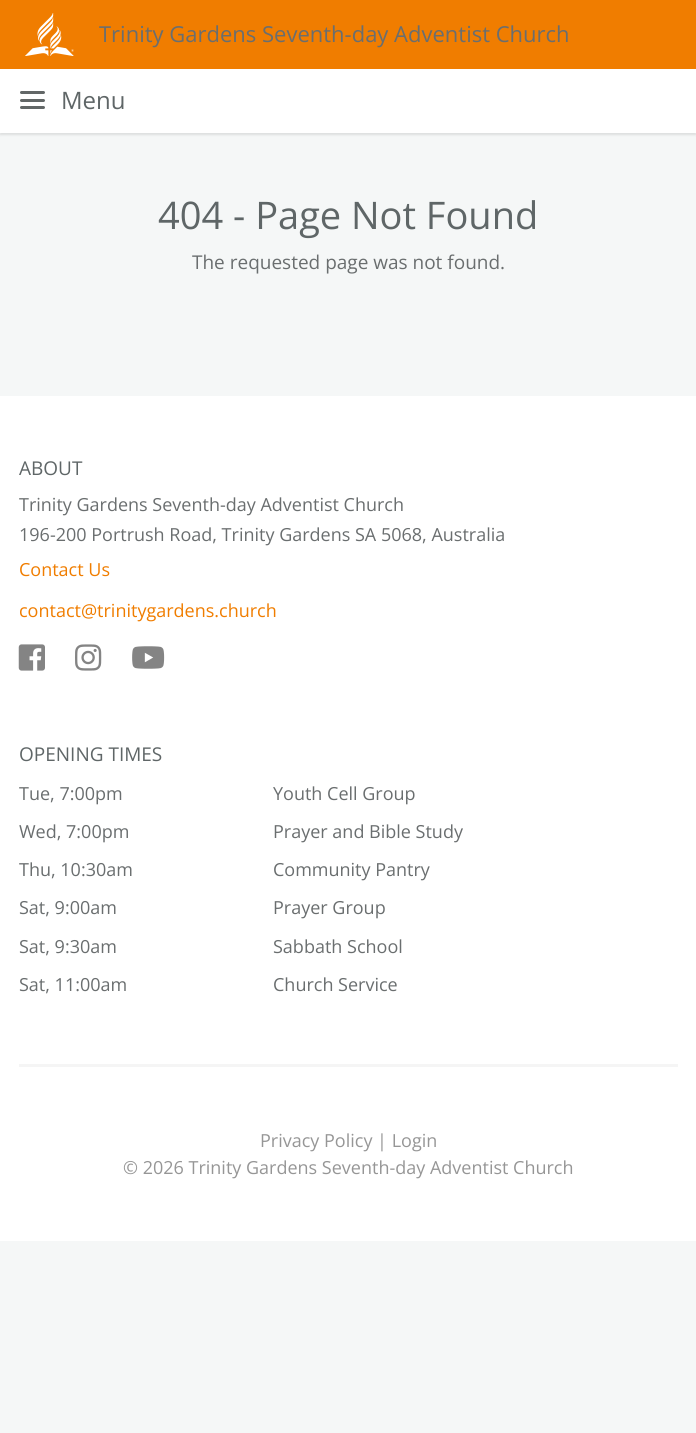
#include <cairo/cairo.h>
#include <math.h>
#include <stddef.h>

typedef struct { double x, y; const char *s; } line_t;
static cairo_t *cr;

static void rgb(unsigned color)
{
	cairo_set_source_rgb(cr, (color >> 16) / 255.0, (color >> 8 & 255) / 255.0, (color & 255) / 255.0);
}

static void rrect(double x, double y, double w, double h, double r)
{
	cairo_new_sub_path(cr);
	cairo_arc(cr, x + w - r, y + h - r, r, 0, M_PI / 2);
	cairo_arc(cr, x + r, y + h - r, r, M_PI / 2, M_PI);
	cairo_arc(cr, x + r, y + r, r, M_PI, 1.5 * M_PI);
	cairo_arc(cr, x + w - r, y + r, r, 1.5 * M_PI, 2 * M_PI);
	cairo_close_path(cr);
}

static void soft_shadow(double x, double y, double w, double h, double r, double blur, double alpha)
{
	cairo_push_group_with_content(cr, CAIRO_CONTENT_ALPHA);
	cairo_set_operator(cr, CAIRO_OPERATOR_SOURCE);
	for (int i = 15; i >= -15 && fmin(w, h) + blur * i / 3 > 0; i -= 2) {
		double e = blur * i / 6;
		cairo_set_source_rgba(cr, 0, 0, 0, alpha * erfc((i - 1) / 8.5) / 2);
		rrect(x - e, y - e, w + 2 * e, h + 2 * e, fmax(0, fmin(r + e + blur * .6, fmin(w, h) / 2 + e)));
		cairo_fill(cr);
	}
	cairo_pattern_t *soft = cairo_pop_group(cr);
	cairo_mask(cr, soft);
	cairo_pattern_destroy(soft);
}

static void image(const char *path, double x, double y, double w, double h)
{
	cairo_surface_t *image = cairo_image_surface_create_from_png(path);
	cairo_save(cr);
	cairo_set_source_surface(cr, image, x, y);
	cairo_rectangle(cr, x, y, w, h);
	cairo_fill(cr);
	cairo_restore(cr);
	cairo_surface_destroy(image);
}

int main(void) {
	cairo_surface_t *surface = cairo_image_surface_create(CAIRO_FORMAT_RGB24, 696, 1433);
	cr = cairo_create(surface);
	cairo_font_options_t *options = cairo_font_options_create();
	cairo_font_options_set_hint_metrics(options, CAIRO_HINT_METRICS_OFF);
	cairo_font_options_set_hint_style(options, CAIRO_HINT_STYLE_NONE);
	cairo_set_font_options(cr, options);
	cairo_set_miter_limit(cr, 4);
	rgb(0xf5f7f7);
	cairo_paint(cr);
	rgb(0xf07d00);
	cairo_rectangle(cr, 0, 0, 696, 69);
	cairo_fill(cr);
	image("img/1.png", 25, 13, 49, 43);
	rgb(0x000000);
	soft_shadow(0, 71, 696, 64, 0, 1, 0.1);
	rgb(0xffffff);
	cairo_rectangle(cr, 0, 69, 696, 64);
	cairo_fill(cr);
	rgb(0x626767);
	rrect(20, 106, 25, 3, 1.5);
	cairo_fill(cr);
	rrect(20, 91, 25, 3, 1.5);
	cairo_fill(cr);
	rrect(20, 99, 25, 3, 1.5);
	cairo_fill(cr);
	rgb(0xffffff);
	cairo_rectangle(cr, 0, 396, 696, 845);
	cairo_fill(cr);
	rgb(0xf5f5f5);
	cairo_rectangle(cr, 19, 1064, 659, 3);
	cairo_fill(cr);
	image("img/2.png", 18, 644, 27, 27);
	image("img/3.png", 75, 644, 27, 27);
	image("img/4.png", 132, 646, 33, 23);
	cairo_select_font_face(cr, "Open Sans", CAIRO_FONT_SLANT_NORMAL, CAIRO_FONT_WEIGHT_NORMAL);
	cairo_set_font_size(cr, 22);
	rgb(0x6a6e6f);
	cairo_move_to(cr, 99, 42);
	cairo_show_text(cr, "Trinity Gardens Seventh-day Adventist Church");
	cairo_set_font_size(cr, 24);
	rgb(0x5f6667);
	cairo_move_to(cr, 61, 109);
	cairo_show_text(cr, "Menu");
	cairo_set_font_size(cr, 38);
	cairo_move_to(cr, 158, 229);
	cairo_show_text(cr, "404 - Page Not Found");
	cairo_set_font_size(cr, 19);
	rgb(0x6a6e6f);
	cairo_move_to(cr, 192, 269);
	cairo_show_text(cr, "The requested page was not found.");
	rgb(0x5f6667);
	cairo_move_to(cr, 19, 475);
	cairo_show_text(cr, "ABOUT");
	cairo_set_font_size(cr, 18);
	rgb(0x6a6e6f);
	cairo_move_to(cr, 19, 511);
	cairo_show_text(cr, "Trinity Gardens Seventh-day Adventist Church");
	cairo_move_to(cr, 19, 541);
	cairo_show_text(cr, "196-200 Portrush Road, Trinity Gardens SA 5068, Australia");
	rgb(0xf07d00);
	cairo_move_to(cr, 19, 576);
	cairo_show_text(cr, "Contact Us");
	cairo_move_to(cr, 19, 617);
	cairo_show_text(cr, "contact@trinitygardens.church");
	cairo_set_font_size(cr, 19);
	rgb(0x5f6667);
	cairo_move_to(cr, 19, 761);
	cairo_show_text(cr, "OPENING TIMES");
	cairo_set_font_size(cr, 18);
	rgb(0x6a6e6f);
	{
		static const line_t items[] = {
			{19, 800, "Tue, 7:00pm"},
			{273, 800, "Youth Cell Group"},
			{19, 838, "Wed, 7:00pm"},
			{273, 838, "Prayer and Bible Study"},
			{19, 876, "Thu, 10:30am"},
			{273, 876, "Community Pantry"},
			{19, 914, "Sat, 9:00am"},
			{273, 914, "Prayer Group"},
			{19, 953, "Sat, 9:30am"},
			{273, 953, "Sabbath School"},
			{19, 991, "Sat, 11:00am"},
			{273, 991, "Church Service"},
		};
		for (size_t i = 0; i < sizeof items / sizeof *items; i++) {
			cairo_move_to(cr, items[i].x, items[i].y);
			cairo_show_text(cr, items[i].s);
		}
	}
	rgb(0x969696);
	cairo_move_to(cr, 260, 1147);
	cairo_show_text(cr, "Privacy Policy | Login");
	cairo_move_to(cr, 123, 1174);
	cairo_show_text(cr, "© 2026 Trinity Gardens Seventh-day Adventist Church");
	cairo_surface_write_to_png(surface, "page.png");
	cairo_font_options_destroy(options);
	cairo_destroy(cr);
	cairo_surface_destroy(surface);
	return 0;
}
